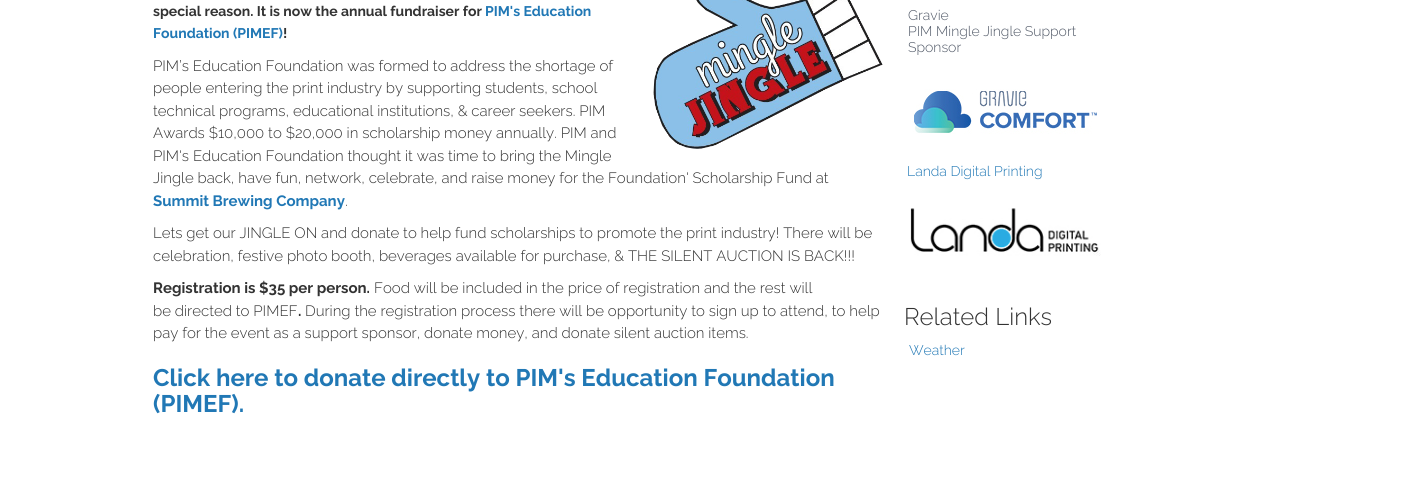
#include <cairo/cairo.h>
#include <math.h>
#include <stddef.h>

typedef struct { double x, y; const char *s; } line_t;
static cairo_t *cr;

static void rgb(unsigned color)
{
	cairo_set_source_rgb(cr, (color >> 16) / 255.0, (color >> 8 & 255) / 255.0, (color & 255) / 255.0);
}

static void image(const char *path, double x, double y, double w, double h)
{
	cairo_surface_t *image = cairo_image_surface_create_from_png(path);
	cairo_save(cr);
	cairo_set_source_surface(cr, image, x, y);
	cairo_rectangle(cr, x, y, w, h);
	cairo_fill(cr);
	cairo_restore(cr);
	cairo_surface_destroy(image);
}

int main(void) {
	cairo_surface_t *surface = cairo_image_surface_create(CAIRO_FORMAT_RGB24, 1424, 487);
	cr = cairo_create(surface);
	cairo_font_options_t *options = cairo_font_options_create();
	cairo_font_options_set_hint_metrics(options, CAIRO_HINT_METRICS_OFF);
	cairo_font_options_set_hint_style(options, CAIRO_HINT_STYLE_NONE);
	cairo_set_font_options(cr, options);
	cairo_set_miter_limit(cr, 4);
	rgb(0xffffff);
	cairo_paint(cr);
	image("img/1.png", 653, 0, 230, 149);
	image("img/2.png", 912, 89, 185, 45);
	image("img/3.png", 910, 208, 191, 48);
	cairo_select_font_face(cr, "Raleway", CAIRO_FONT_SLANT_NORMAL, CAIRO_FONT_WEIGHT_BOLD);
	cairo_set_font_size(cr, 14);
	rgb(0x333333);
	cairo_move_to(cr, 153, 16);
	cairo_show_text(cr, "special reason. It is now the annual fundraiser for");
	rgb(0x2178b5);
	cairo_move_to(cr, 485, 16);
	cairo_show_text(cr, "PIM's Education");
	cairo_move_to(cr, 153, 38);
	cairo_show_text(cr, "Foundation (PIMEF)");
	rgb(0x333333);
	cairo_move_to(cr, 283, 38);
	cairo_show_text(cr, "!");
	cairo_select_font_face(cr, "Raleway Light", CAIRO_FONT_SLANT_NORMAL, CAIRO_FONT_WEIGHT_NORMAL);
	cairo_set_font_size(cr, 15);
	{
		static const line_t items[] = {
			{153, 71, "PIM’s Education Foundation was formed to address the shortage of"},
			{153, 93, "people entering the print industry by supporting students, school"},
			{153, 116, "technical programs, educational institutions, & career seekers. PIM"},
			{153, 138, "Awards $10,000 to $20,000 in scholarship money annually. PIM and"},
			{153, 161, "PIM's Education Foundation thought it was time to bring the Mingle"},
			{153, 183, "Jingle back, have fun, network, celebrate, and raise money for the Foundation' Scholarship Fund at"},
		};
		for (size_t i = 0; i < sizeof items / sizeof *items; i++) {
			cairo_move_to(cr, items[i].x, items[i].y);
			cairo_show_text(cr, items[i].s);
		}
	}
	cairo_select_font_face(cr, "Raleway", CAIRO_FONT_SLANT_NORMAL, CAIRO_FONT_WEIGHT_BOLD);
	rgb(0x2178b5);
	cairo_move_to(cr, 153, 206);
	cairo_show_text(cr, "Summit Brewing Company");
	cairo_select_font_face(cr, "Raleway Light", CAIRO_FONT_SLANT_NORMAL, CAIRO_FONT_WEIGHT_NORMAL);
	rgb(0x333333);
	{
		static const line_t items[] = {
			{345, 206, "."},
			{153, 238, "Lets get our JINGLE ON and donate to help fund scholarships to promote the print industry! There will be"},
			{153, 261, "celebration, festive photo booth, beverages available for purchase, & THE SILENT AUCTION IS BACK!!!"},
		};
		for (size_t i = 0; i < sizeof items / sizeof *items; i++) {
			cairo_move_to(cr, items[i].x, items[i].y);
			cairo_show_text(cr, items[i].s);
		}
	}
	cairo_select_font_face(cr, "Raleway", CAIRO_FONT_SLANT_NORMAL, CAIRO_FONT_WEIGHT_BOLD);
	cairo_move_to(cr, 153, 293);
	cairo_show_text(cr, "Registration is $35 per person.");
	cairo_select_font_face(cr, "Raleway Light", CAIRO_FONT_SLANT_NORMAL, CAIRO_FONT_WEIGHT_NORMAL);
	cairo_move_to(cr, 374, 293);
	cairo_show_text(cr, "Food will be included in the price of registration and the rest will");
	cairo_move_to(cr, 153, 316);
	cairo_show_text(cr, "be directed to PIMEF");
	cairo_select_font_face(cr, "Raleway", CAIRO_FONT_SLANT_NORMAL, CAIRO_FONT_WEIGHT_BOLD);
	cairo_move_to(cr, 298, 316);
	cairo_show_text(cr, ".");
	cairo_select_font_face(cr, "Raleway Light", CAIRO_FONT_SLANT_NORMAL, CAIRO_FONT_WEIGHT_NORMAL);
	cairo_move_to(cr, 305, 316);
	cairo_show_text(cr, "During the registration process there will be opportunity to sign up to attend, to help");
	cairo_move_to(cr, 153, 338);
	cairo_show_text(cr, "pay for the event as a support sponsor, donate money, and donate silent auction items.");
	cairo_select_font_face(cr, "Raleway", CAIRO_FONT_SLANT_NORMAL, CAIRO_FONT_WEIGHT_BOLD);
	cairo_set_font_size(cr, 24);
	rgb(0x2178b5);
	cairo_move_to(cr, 153, 386);
	cairo_show_text(cr, "Click here to donate directly to PIM's Education Foundation");
	cairo_move_to(cr, 153, 412);
	cairo_show_text(cr, "(PIMEF).");
	cairo_select_font_face(cr, "Raleway Light", CAIRO_FONT_SLANT_NORMAL, CAIRO_FONT_WEIGHT_NORMAL);
	cairo_set_font_size(cr, 14);
	rgb(0x515967);
	{
		static const line_t items[] = {
			{908, 20, "Gravie"},
			{908, 36, "PIM Mingle Jingle Support"},
			{908, 52, "Sponsor"},
		};
		for (size_t i = 0; i < sizeof items / sizeof *items; i++) {
			cairo_move_to(cr, items[i].x, items[i].y);
			cairo_show_text(cr, items[i].s);
		}
	}
	rgb(0x2178b5);
	cairo_move_to(cr, 907, 176);
	cairo_show_text(cr, "Landa Digital Printing");
	cairo_set_font_size(cr, 24);
	rgb(0x333333);
	cairo_move_to(cr, 904, 325);
	cairo_show_text(cr, "Related Links");
	cairo_set_font_size(cr, 14);
	rgb(0x2178b5);
	cairo_move_to(cr, 909, 355);
	cairo_show_text(cr, "Weather");
	cairo_surface_write_to_png(surface, "page.png");
	cairo_font_options_destroy(options);
	cairo_destroy(cr);
	cairo_surface_destroy(surface);
	return 0;
}
